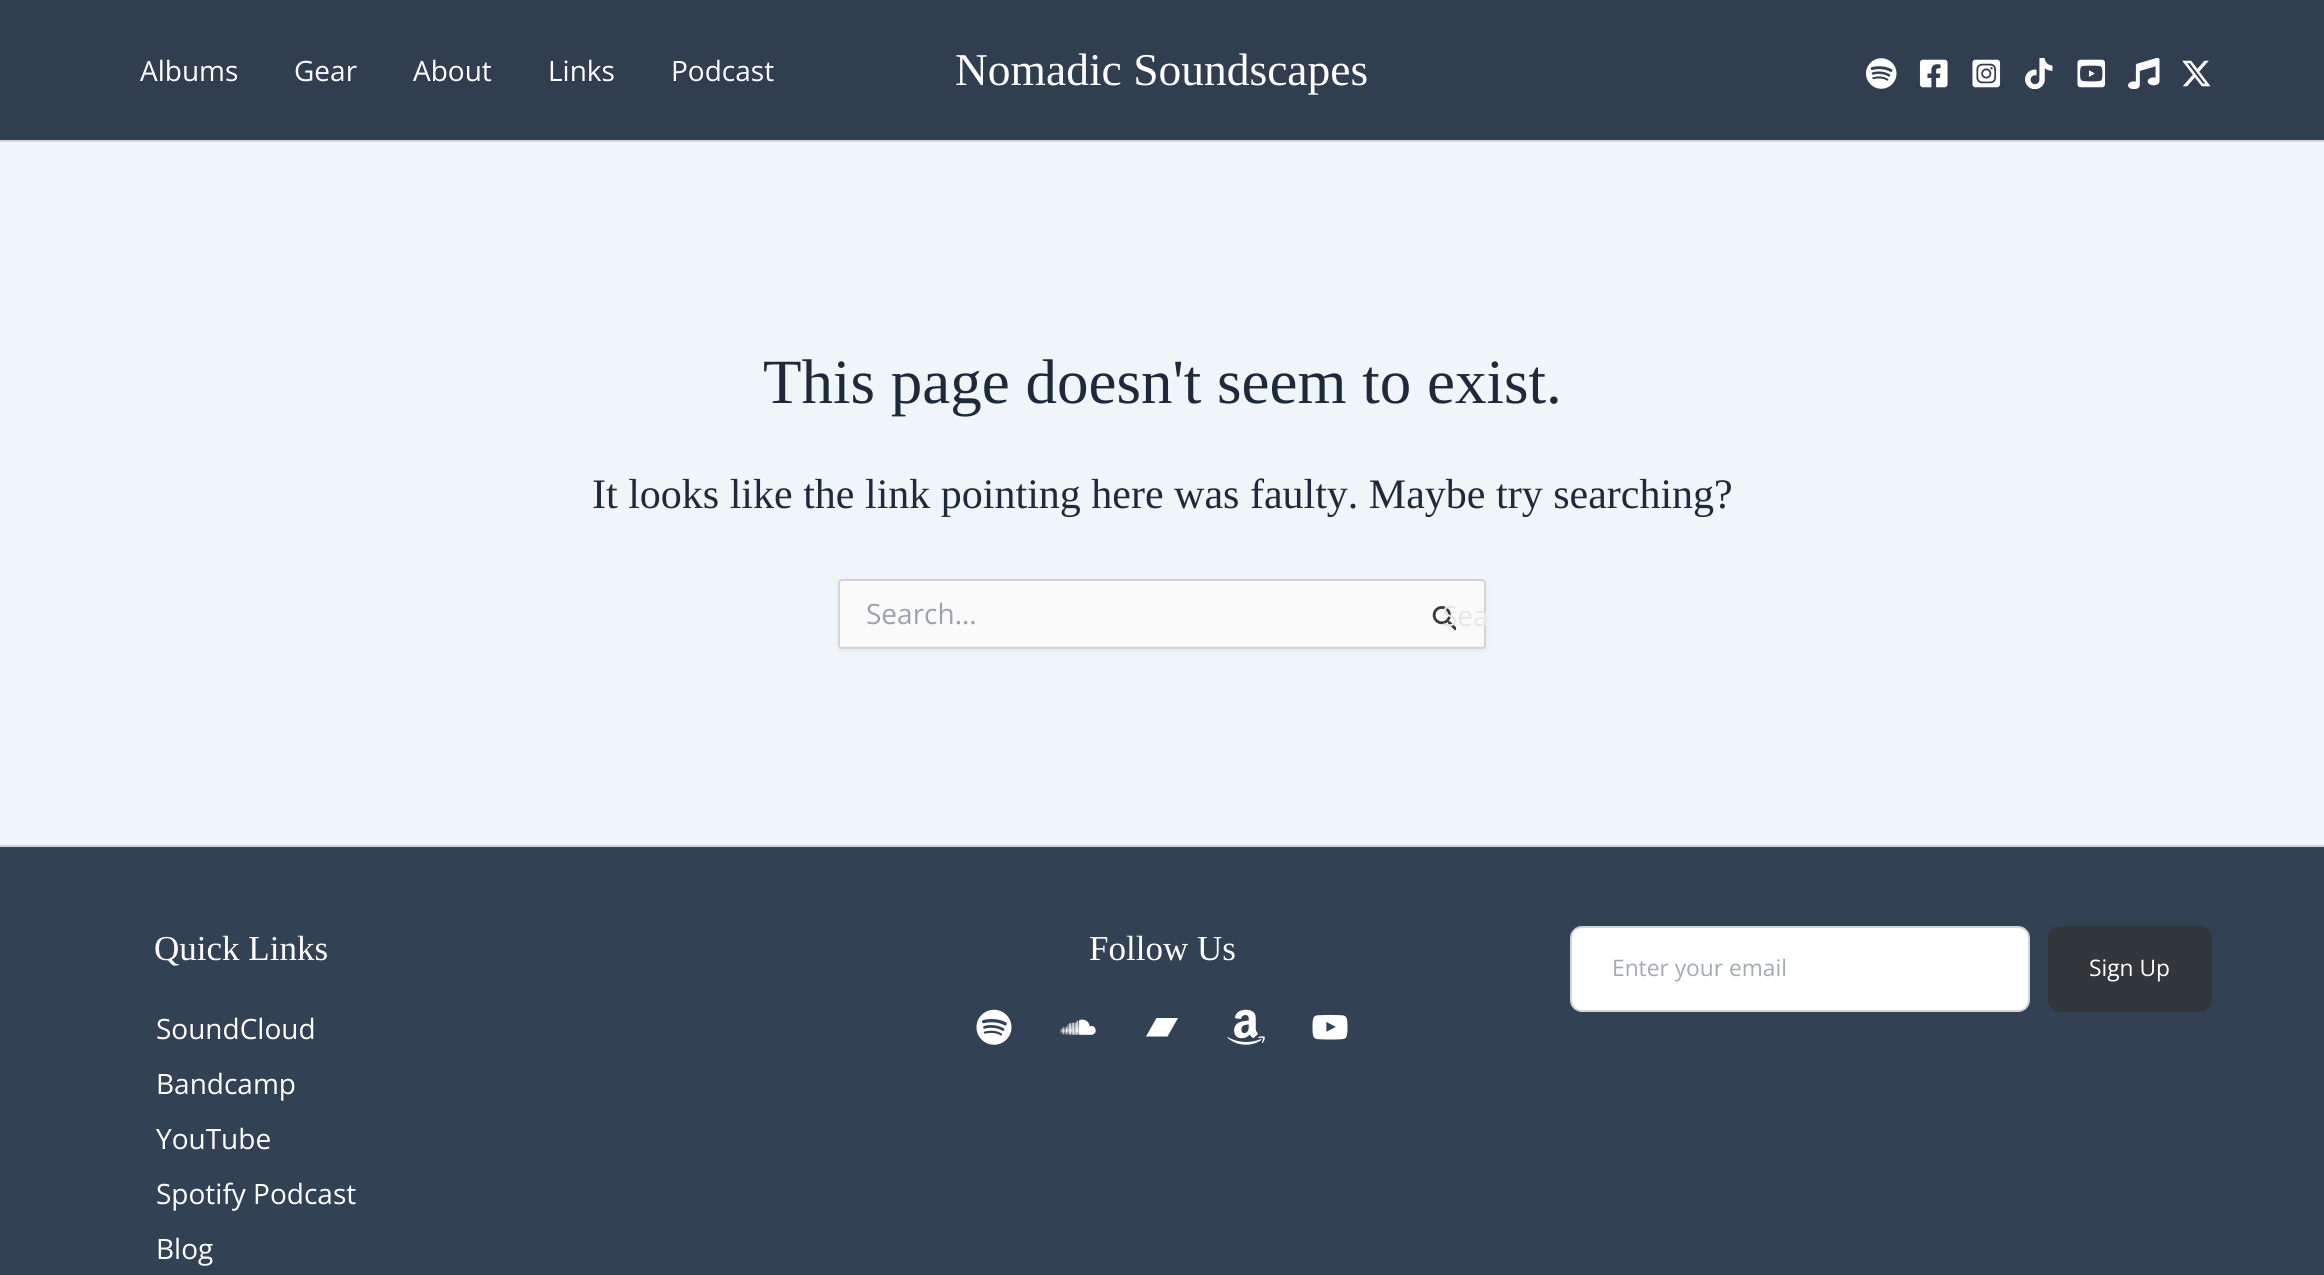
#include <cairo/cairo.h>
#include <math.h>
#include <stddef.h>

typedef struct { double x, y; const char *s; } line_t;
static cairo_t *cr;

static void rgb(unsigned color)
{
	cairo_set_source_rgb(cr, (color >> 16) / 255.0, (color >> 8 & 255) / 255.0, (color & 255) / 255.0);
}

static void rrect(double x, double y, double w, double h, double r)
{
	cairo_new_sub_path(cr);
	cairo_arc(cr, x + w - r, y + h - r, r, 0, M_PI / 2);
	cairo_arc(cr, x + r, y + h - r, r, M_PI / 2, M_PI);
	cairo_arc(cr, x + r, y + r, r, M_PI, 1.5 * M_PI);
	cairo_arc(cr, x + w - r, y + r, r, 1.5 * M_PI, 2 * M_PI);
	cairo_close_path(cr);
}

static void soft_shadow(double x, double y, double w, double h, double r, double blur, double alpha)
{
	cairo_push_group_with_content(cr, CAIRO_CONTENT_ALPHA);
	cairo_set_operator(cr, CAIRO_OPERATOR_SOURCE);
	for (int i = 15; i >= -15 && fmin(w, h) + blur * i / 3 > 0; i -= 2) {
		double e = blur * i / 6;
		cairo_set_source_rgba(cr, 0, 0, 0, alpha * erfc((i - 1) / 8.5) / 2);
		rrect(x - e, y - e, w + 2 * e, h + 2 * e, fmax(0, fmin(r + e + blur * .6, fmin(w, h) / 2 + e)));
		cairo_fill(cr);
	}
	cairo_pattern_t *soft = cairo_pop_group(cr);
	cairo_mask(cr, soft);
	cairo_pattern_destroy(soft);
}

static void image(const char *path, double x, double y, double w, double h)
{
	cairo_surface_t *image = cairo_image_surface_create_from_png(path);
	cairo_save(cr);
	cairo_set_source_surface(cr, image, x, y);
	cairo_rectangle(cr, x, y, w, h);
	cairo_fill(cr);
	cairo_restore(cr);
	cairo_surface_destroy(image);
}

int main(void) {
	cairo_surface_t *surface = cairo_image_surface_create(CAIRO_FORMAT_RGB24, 2324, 1275);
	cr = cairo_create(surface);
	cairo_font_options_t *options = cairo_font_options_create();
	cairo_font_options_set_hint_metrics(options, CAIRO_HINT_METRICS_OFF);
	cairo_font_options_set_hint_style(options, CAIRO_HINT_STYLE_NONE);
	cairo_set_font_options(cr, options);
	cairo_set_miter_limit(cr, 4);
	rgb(0xf0f5fa);
	cairo_paint(cr);
	rgb(0x313e50);
	cairo_rectangle(cr, 0, 0, 2324, 140);
	cairo_fill(cr);
	rgb(0xd1d5db);
	cairo_rectangle(cr, 0, 140, 2324, 2);
	cairo_fill(cr);
	image("img/1.png", 1866, 58, 31, 31);
	image("img/2.png", 1919, 59, 29, 29);
	image("img/3.png", 1972, 59, 29, 29);
	image("img/4.png", 2025, 58, 28, 31);
	image("img/5.png", 2077, 59, 29, 29);
	image("img/6.png", 2128, 58, 32, 31);
	image("img/7.png", 2182, 60, 29, 27);
	rgb(0x000000);
	soft_shadow(838, 581, 648, 70, 4, 2, 0.05);
	rgb(0xfafafa);
	rrect(839, 580, 646, 68, 3);
	cairo_fill_preserve(cr);
	rgb(0xd1d5db);
	cairo_stroke(cr);
	image("img/8.png", 1432, 606, 24, 25);
	rgb(0x334155);
	cairo_rectangle(cr, 0, 847, 2324, 428);
	cairo_fill(cr);
	rgb(0xd1d5db);
	cairo_rectangle(cr, 0, 845, 2324, 2);
	cairo_fill(cr);
	image("img/9.png", 976, 1009, 36, 36);
	image("img/10.png", 1060, 1019, 36, 16);
	rgb(0xffffff);
	cairo_new_path(cr);
	cairo_move_to(cr, 1167.5, 1036.5);
	cairo_line_to(cr, 1146, 1036.5);
	cairo_line_to(cr, 1156.5, 1018);
	cairo_line_to(cr, 1178, 1018);
	cairo_line_to(cr, 1167.5, 1036.5);
	cairo_fill(cr);
	image("img/11.png", 1227, 1009, 38, 36);
	image("img/12.png", 1312, 1014, 36, 26);
	rrect(1571, 927, 458, 84, 11);
	cairo_fill_preserve(cr);
	rgb(0xd1d5db);
	cairo_stroke(cr);
	rgb(0x32373c);
	rrect(2048, 926, 164, 86, 12);
	cairo_fill(cr);
	cairo_select_font_face(cr, "Open Sans", CAIRO_FONT_SLANT_NORMAL, CAIRO_FONT_WEIGHT_NORMAL);
	cairo_set_font_size(cr, 28);
	rgb(0xffffff);
	{
		static const line_t items[] = {
			{140, 81, "Albums"},
			{294, 81, "Gear"},
			{413, 81, "About"},
			{548, 81, "Links"},
			{671, 81, "Podcast"},
		};
		for (size_t i = 0; i < sizeof items / sizeof *items; i++) {
			cairo_move_to(cr, items[i].x, items[i].y);
			cairo_show_text(cr, items[i].s);
		}
	}
	cairo_select_font_face(cr, "Liberation Serif", CAIRO_FONT_SLANT_NORMAL, CAIRO_FONT_WEIGHT_NORMAL);
	cairo_set_font_size(cr, 45.5);
	cairo_move_to(cr, 955, 85);
	cairo_show_text(cr, "Nomadic Soundscapes");
	cairo_set_font_size(cr, 63);
	rgb(0x1e293b);
	cairo_move_to(cr, 763, 403);
	cairo_show_text(cr, "This page doesn't seem to exist.");
	cairo_set_font_size(cr, 42);
	cairo_move_to(cr, 592, 508);
	cairo_show_text(cr, "It looks like the link pointing here was faulty. Maybe try searching?");
	cairo_select_font_face(cr, "Open Sans", CAIRO_FONT_SLANT_NORMAL, CAIRO_FONT_WEIGHT_NORMAL);
	cairo_set_font_size(cr, 28);
	rgb(0x9ca3af);
	cairo_move_to(cr, 866, 624);
	cairo_show_text(cr, "Search...");
	cairo_save(cr);
	rrect(1407, 579, 79, 74, 4);
	cairo_clip(cr);
	rgb(0xe6e6e6);
	cairo_move_to(cr, 1442, 626);
	cairo_show_text(cr, "Sea");
	cairo_restore(cr);
	cairo_select_font_face(cr, "Liberation Serif", CAIRO_FONT_SLANT_NORMAL, CAIRO_FONT_WEIGHT_NORMAL);
	cairo_set_font_size(cr, 35);
	rgb(0xffffff);
	cairo_move_to(cr, 154, 960);
	cairo_show_text(cr, "Quick Links");
	cairo_select_font_face(cr, "Open Sans", CAIRO_FONT_SLANT_NORMAL, CAIRO_FONT_WEIGHT_NORMAL);
	cairo_set_font_size(cr, 28);
	{
		static const line_t items[] = {
			{156, 1039, "SoundCloud"},
			{156, 1094, "Bandcamp"},
			{156, 1149, "YouTube"},
			{156, 1204, "Spotify Podcast"},
			{156, 1259, "Blog"},
		};
		for (size_t i = 0; i < sizeof items / sizeof *items; i++) {
			cairo_move_to(cr, items[i].x, items[i].y);
			cairo_show_text(cr, items[i].s);
		}
	}
	cairo_select_font_face(cr, "Liberation Serif", CAIRO_FONT_SLANT_NORMAL, CAIRO_FONT_WEIGHT_NORMAL);
	cairo_set_font_size(cr, 35);
	cairo_move_to(cr, 1089, 960);
	cairo_show_text(cr, "Follow Us");
	cairo_select_font_face(cr, "Open Sans", CAIRO_FONT_SLANT_NORMAL, CAIRO_FONT_WEIGHT_NORMAL);
	cairo_set_font_size(cr, 22.75);
	rgb(0xa3aab4);
	cairo_move_to(cr, 1612, 976);
	cairo_show_text(cr, "Enter your email");
	rgb(0xffffff);
	cairo_move_to(cr, 2089, 976);
	cairo_show_text(cr, "Sign Up");
	cairo_surface_write_to_png(surface, "page.png");
	cairo_font_options_destroy(options);
	cairo_destroy(cr);
	cairo_surface_destroy(surface);
	return 0;
}
